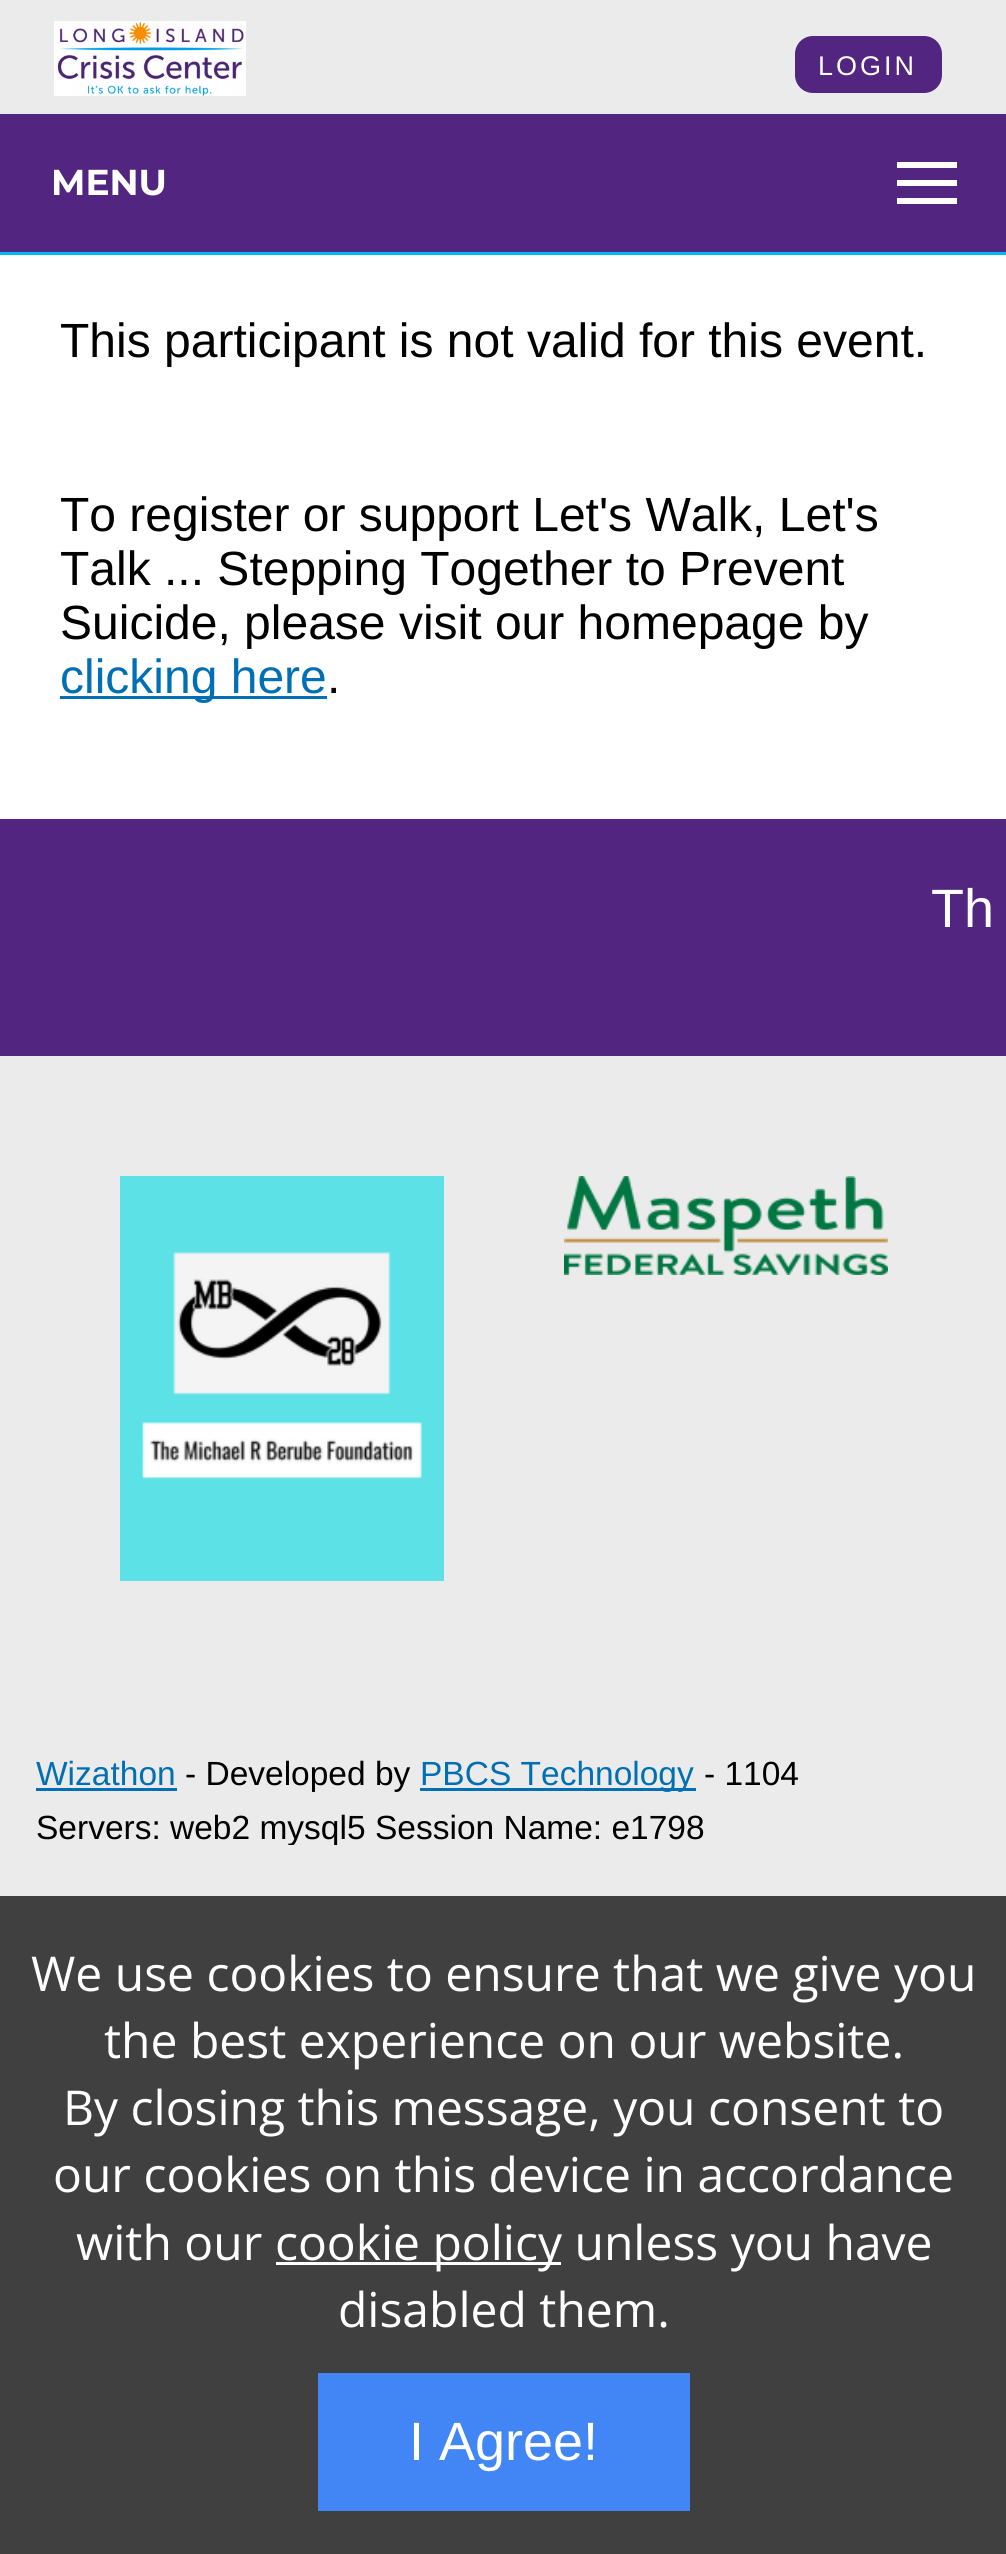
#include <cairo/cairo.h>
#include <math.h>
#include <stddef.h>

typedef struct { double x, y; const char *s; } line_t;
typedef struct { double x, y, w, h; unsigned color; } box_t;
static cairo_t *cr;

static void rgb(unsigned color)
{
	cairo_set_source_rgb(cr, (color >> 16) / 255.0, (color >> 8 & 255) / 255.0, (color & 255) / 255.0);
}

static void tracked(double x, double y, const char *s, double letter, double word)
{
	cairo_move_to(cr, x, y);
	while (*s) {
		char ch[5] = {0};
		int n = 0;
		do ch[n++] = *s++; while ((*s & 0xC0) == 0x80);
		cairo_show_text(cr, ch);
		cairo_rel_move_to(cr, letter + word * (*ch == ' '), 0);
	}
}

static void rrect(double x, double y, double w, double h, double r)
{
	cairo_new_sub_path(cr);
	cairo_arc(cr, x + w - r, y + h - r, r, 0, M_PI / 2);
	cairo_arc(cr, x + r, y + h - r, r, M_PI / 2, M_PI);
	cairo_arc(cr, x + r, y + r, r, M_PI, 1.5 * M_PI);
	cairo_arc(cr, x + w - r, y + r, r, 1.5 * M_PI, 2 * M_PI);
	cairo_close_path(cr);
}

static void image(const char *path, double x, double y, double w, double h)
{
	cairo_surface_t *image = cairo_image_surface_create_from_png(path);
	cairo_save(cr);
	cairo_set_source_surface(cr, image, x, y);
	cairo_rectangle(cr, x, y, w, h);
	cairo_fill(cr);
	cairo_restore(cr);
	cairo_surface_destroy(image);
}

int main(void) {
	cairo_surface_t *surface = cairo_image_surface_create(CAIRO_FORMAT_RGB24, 1006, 2554);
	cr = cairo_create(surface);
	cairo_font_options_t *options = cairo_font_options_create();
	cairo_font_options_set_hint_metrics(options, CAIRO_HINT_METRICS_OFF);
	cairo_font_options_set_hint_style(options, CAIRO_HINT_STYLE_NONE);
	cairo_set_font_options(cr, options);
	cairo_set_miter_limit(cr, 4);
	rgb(0xebebeb);
	cairo_paint(cr);
	image("img/1.png", 54, 21, 192, 75);
	rgb(0x522580);
	rrect(795, 36, 147, 57, 18);
	cairo_fill(cr);
	{
		static const box_t items[] = {
			{0, 114, 1006, 138, 0x522580},
			{897, 162, 60, 6, 0xffffff},
			{897, 180, 60, 6, 0xffffff},
			{897, 198, 60, 6, 0xffffff},
			{0, 252, 1006, 3, 0x00b7f5},
			{0, 255, 1006, 564, 0xffffff},
			{60, 696, 267, 3, 0x006fb4},
			{0, 819, 1006, 237, 0x522580},
		};
		for (size_t i = 0; i < sizeof items / sizeof *items; i++) {
			rgb(items[i].color);
			cairo_rectangle(cr, items[i].x, items[i].y, items[i].w, items[i].h);
			cairo_fill(cr);
		}
	}
	image("img/2.png", 120, 1176, 324, 405);
	image("img/3.png", 564, 1176, 324, 99);
	{
		static const box_t items[] = {
			{36, 1788, 141, 3, 0x006fb4},
			{420, 1788, 276, 3, 0x006fb4},
			{0, 1896, 1006, 658, 0x404040},
			{276, 2262, 285, 3, 0xffffff},
			{318, 2373, 372, 138, 0x4285f4},
		};
		for (size_t i = 0; i < sizeof items / sizeof *items; i++) {
			rgb(items[i].color);
			cairo_rectangle(cr, items[i].x, items[i].y, items[i].w, items[i].h);
			cairo_fill(cr);
		}
	}
	cairo_select_font_face(cr, "Liberation Sans", CAIRO_FONT_SLANT_NORMAL, CAIRO_FONT_WEIGHT_NORMAL);
	cairo_set_font_size(cr, 27);
	rgb(0xffffff);
	tracked(818, 75, "LOGIN", 3, 0);
	cairo_select_font_face(cr, "Montserrat", CAIRO_FONT_SLANT_NORMAL, CAIRO_FONT_WEIGHT_BOLD);
	cairo_set_font_size(cr, 36);
	cairo_move_to(cr, 51, 195);
	cairo_show_text(cr, "MENU");
	cairo_select_font_face(cr, "Liberation Sans", CAIRO_FONT_SLANT_NORMAL, CAIRO_FONT_WEIGHT_NORMAL);
	cairo_set_font_size(cr, 48);
	rgb(0x000000);
	{
		static const line_t items[] = {
			{60, 357, "This participant is not valid for this event."},
			{60, 531, "To register or support Let's Walk, Let's"},
			{60, 585, "Talk ... Stepping Together to Prevent"},
			{60, 639, "Suicide, please visit our homepage by"},
		};
		for (size_t i = 0; i < sizeof items / sizeof *items; i++) {
			cairo_move_to(cr, items[i].x, items[i].y);
			cairo_show_text(cr, items[i].s);
		}
	}
	rgb(0x006fb4);
	cairo_move_to(cr, 60, 693);
	cairo_show_text(cr, "clicking here");
	rgb(0x000000);
	cairo_move_to(cr, 327, 693);
	cairo_show_text(cr, ".");
	cairo_set_font_size(cr, 54);
	rgb(0xffffff);
	cairo_move_to(cr, 931, 927);
	cairo_show_text(cr, "Th");
	cairo_set_font_size(cr, 33.5);
	rgb(0x006fb4);
	cairo_move_to(cr, 36, 1785);
	cairo_show_text(cr, "Wizathon");
	rgb(0x000000);
	cairo_move_to(cr, 185, 1785);
	cairo_show_text(cr, "- Developed by");
	rgb(0x006fb4);
	cairo_move_to(cr, 420, 1785);
	cairo_show_text(cr, "PBCS Technology");
	rgb(0x000000);
	cairo_move_to(cr, 704, 1785);
	cairo_show_text(cr, "- 1104");
	cairo_save(cr);
	cairo_rectangle(cr, 0, 1701, 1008, 144);
	cairo_clip(cr);
	cairo_move_to(cr, 36, 1839);
	cairo_show_text(cr, "Servers: web2 mysql5");
	cairo_restore(cr);
	cairo_move_to(cr, 375, 1839);
	cairo_show_text(cr, "Session Name: e1798");
	cairo_select_font_face(cr, "Open Sans", CAIRO_FONT_SLANT_NORMAL, CAIRO_FONT_WEIGHT_NORMAL);
	cairo_set_font_size(cr, 48);
	rgb(0xffffff);
	{
		static const line_t items[] = {
			{31, 1991, "We use cookies to ensure that we give you"},
			{104, 2058, "the best experience on our website."},
			{63, 2125, "By closing this message, you consent to"},
			{53, 2192, "our cookies on this device in accordance"},
			{76, 2260, "with our"},
			{275, 2260, "cookie policy unless you have"},
			{338, 2327, "disabled them."},
		};
		for (size_t i = 0; i < sizeof items / sizeof *items; i++) {
			cairo_move_to(cr, items[i].x, items[i].y);
			cairo_show_text(cr, items[i].s);
		}
	}
	cairo_select_font_face(cr, "Liberation Sans", CAIRO_FONT_SLANT_NORMAL, CAIRO_FONT_WEIGHT_NORMAL);
	cairo_set_font_size(cr, 54);
	cairo_move_to(cr, 409, 2460);
	cairo_show_text(cr, "I Agree!");
	cairo_surface_write_to_png(surface, "page.png");
	cairo_font_options_destroy(options);
	cairo_destroy(cr);
	cairo_surface_destroy(surface);
	return 0;
}
